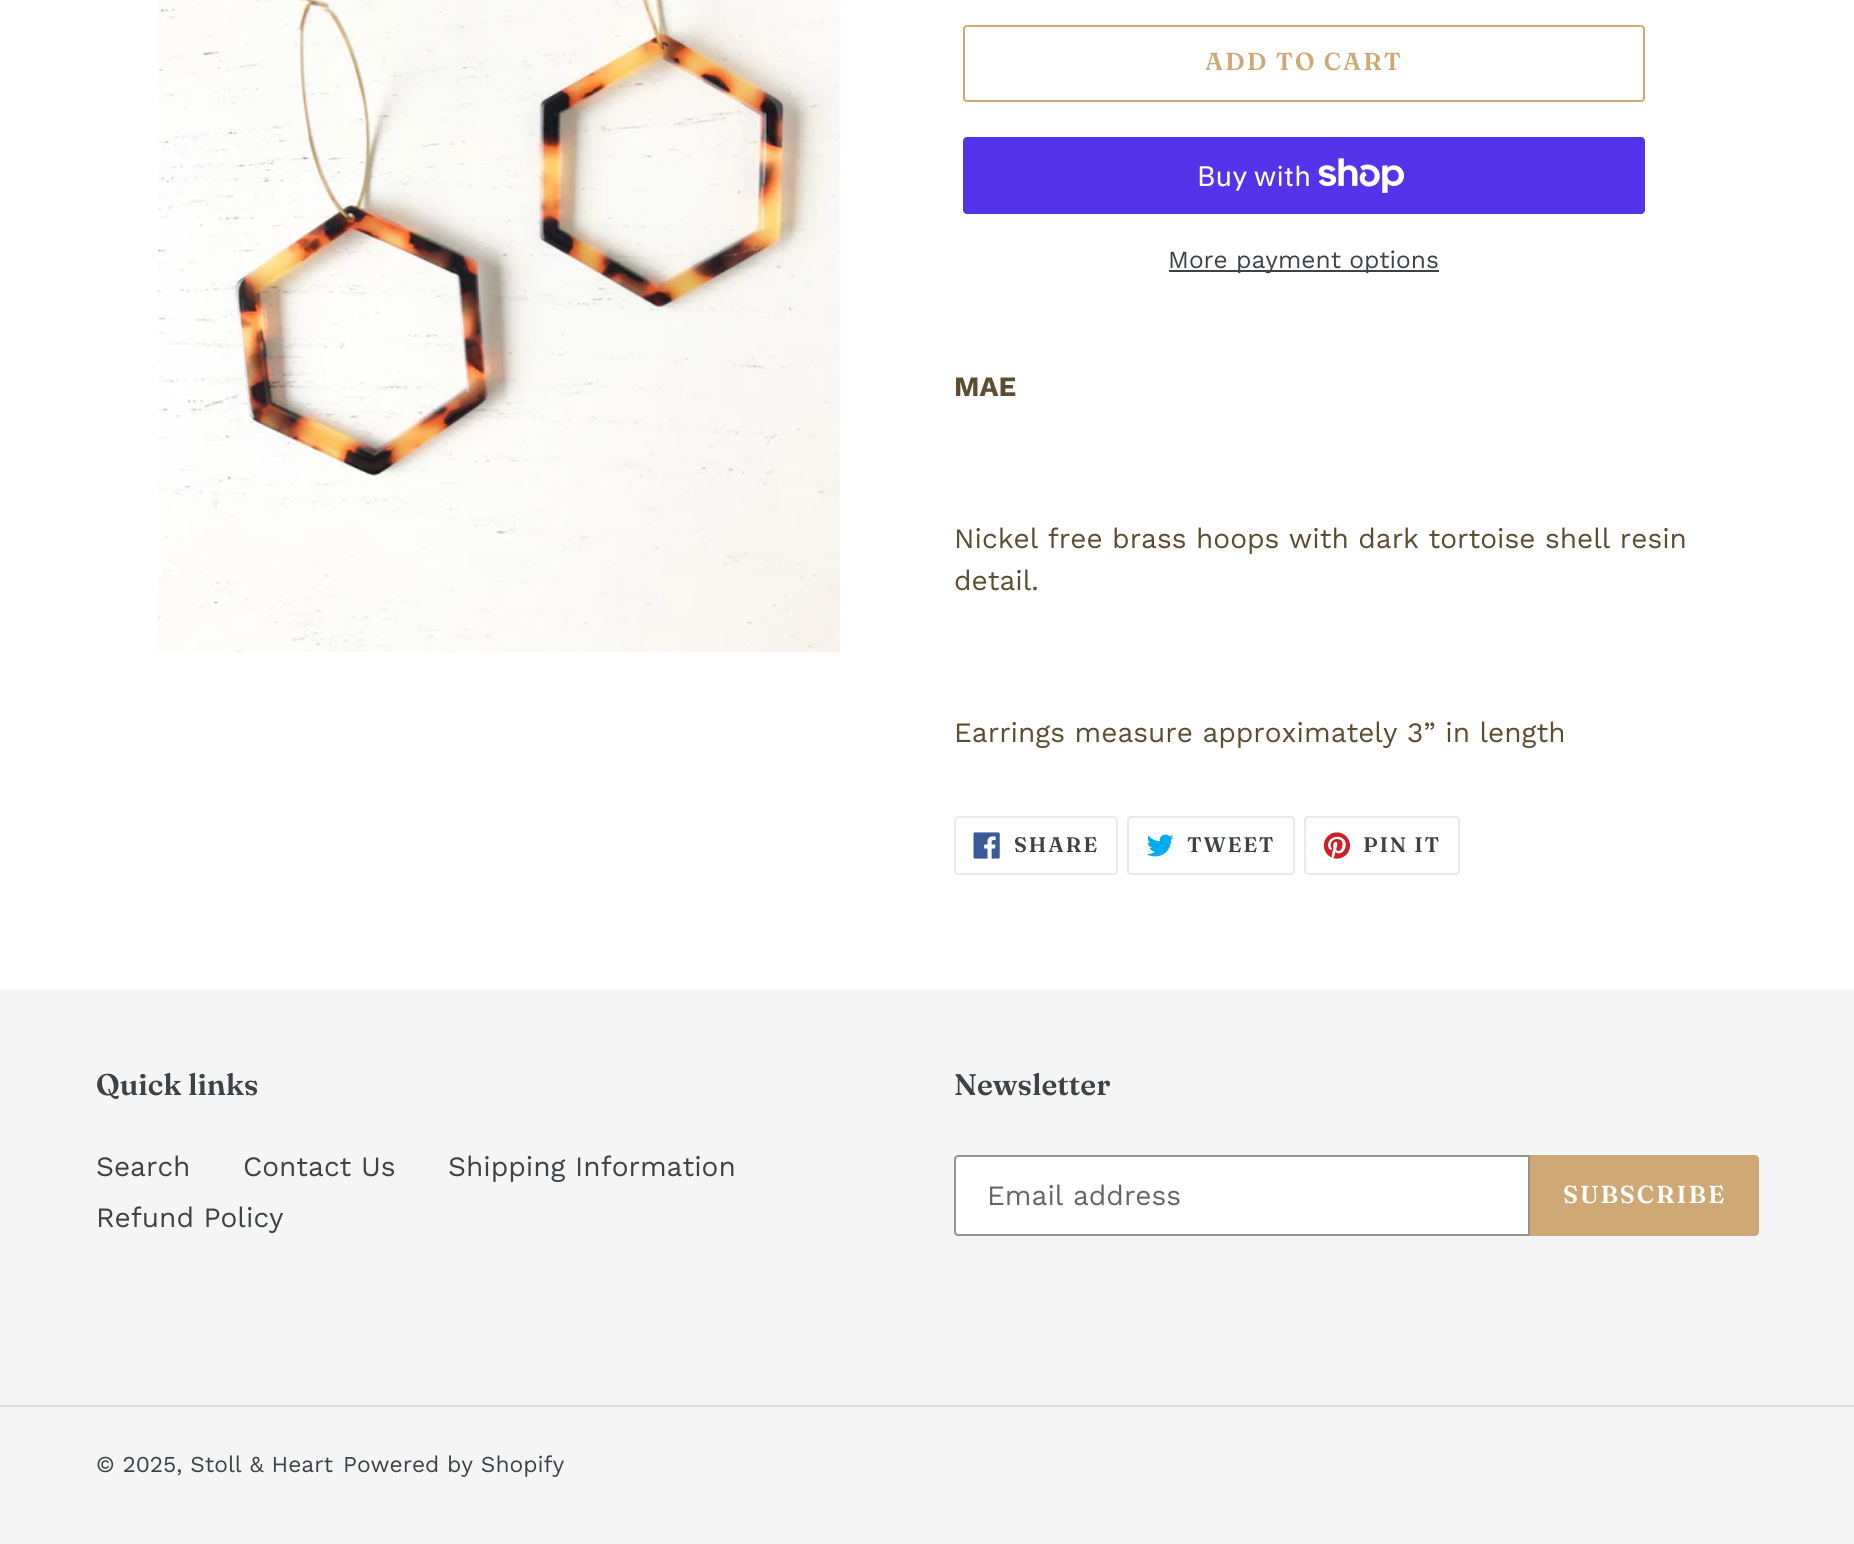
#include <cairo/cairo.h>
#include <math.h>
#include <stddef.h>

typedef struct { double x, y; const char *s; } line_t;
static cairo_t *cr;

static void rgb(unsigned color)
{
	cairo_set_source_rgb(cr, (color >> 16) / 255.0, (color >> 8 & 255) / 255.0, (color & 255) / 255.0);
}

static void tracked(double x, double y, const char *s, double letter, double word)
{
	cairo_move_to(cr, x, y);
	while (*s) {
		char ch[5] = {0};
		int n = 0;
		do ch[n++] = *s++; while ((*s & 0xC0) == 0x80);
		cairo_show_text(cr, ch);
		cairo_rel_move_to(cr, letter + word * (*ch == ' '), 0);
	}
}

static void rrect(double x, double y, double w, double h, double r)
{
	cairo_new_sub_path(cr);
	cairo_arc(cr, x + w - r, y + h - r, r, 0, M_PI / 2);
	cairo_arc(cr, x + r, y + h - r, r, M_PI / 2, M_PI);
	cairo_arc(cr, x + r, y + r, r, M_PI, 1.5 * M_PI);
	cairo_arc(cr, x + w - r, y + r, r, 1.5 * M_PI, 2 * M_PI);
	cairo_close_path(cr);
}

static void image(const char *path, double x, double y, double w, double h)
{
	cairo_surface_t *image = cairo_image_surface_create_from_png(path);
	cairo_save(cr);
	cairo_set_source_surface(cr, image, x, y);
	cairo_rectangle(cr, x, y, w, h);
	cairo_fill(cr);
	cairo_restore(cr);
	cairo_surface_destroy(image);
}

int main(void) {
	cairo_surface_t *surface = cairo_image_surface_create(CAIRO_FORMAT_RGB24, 1854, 1544);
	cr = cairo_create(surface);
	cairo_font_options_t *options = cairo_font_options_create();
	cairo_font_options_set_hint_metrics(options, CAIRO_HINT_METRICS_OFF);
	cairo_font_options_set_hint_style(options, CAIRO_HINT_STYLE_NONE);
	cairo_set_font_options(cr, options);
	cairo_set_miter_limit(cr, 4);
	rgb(0xffffff);
	cairo_paint(cr);
	image("img/1.png", 158, 0, 682, 653);
	rrect(964, 26, 680, 75, 3);
	rgb(0xcea976);
	cairo_stroke(cr);
	rgb(0x5433eb);
	rrect(963, 137, 682, 77, 4);
	cairo_fill(cr);
	image("img/2.png", 1318, 158, 86, 35);
	rgb(0x3d4246);
	cairo_rectangle(cr, 1169, 270, 270, 2);
	cairo_fill(cr);
	rrect(955, 817, 162, 57, 3);
	rgb(0xe8e9eb);
	cairo_stroke(cr);
	image("img/3.png", 973, 832, 27, 27);
	rrect(1128, 817, 166, 57, 3);
	cairo_stroke(cr);
	image("img/4.png", 1147, 834, 27, 23);
	rrect(1305, 817, 154, 57, 3);
	cairo_stroke(cr);
	image("img/5.png", 1323, 832, 28, 27);
	rgb(0xf5f5f5);
	cairo_rectangle(cr, 0, 989, 1854, 555);
	cairo_fill(cr);
	rgb(0xffffff);
	cairo_new_path(cr);
	cairo_move_to(cr, 958, 1156);
	cairo_line_to(cr, 1529, 1156);
	cairo_line_to(cr, 1529, 1235);
	cairo_line_to(cr, 958, 1235);
	cairo_curve_to(cr, 956.5, 1235, 955, 1233.5, 955, 1232);
	cairo_line_to(cr, 955, 1159);
	cairo_curve_to(cr, 955, 1157.5, 956.5, 1156, 958, 1156);
	cairo_close_path(cr);
	cairo_fill_preserve(cr);
	rgb(0x949494);
	cairo_stroke(cr);
	rgb(0xcea976);
	cairo_new_path(cr);
	cairo_move_to(cr, 1530, 1155);
	cairo_line_to(cr, 1755, 1155);
	cairo_curve_to(cr, 1757, 1155, 1759, 1157, 1759, 1159);
	cairo_line_to(cr, 1759, 1232);
	cairo_curve_to(cr, 1759, 1234, 1757, 1236, 1755, 1236);
	cairo_line_to(cr, 1530, 1236);
	cairo_close_path(cr);
	cairo_fill(cr);
	rgb(0xdcdcdc);
	cairo_rectangle(cr, 0, 1405, 1854, 2);
	cairo_fill(cr);
	cairo_select_font_face(cr, "Fraunces SemiBold", CAIRO_FONT_SLANT_NORMAL, CAIRO_FONT_WEIGHT_NORMAL);
	cairo_set_font_size(cr, 24.5);
	rgb(0xcea976);
	tracked(1205, 70, "ADD TO CART", 2, 0);
	cairo_select_font_face(cr, "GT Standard", CAIRO_FONT_SLANT_NORMAL, CAIRO_FONT_WEIGHT_NORMAL);
	cairo_set_font_size(cr, 28);
	rgb(0xffffff);
	cairo_move_to(cr, 1197, 186);
	cairo_show_text(cr, "Buy with");
	cairo_select_font_face(cr, "Work Sans", CAIRO_FONT_SLANT_NORMAL, CAIRO_FONT_WEIGHT_NORMAL);
	cairo_set_font_size(cr, 24.5);
	rgb(0x3d4246);
	cairo_move_to(cr, 1168, 268);
	cairo_show_text(cr, "More payment options");
	cairo_select_font_face(cr, "Work Sans", CAIRO_FONT_SLANT_NORMAL, CAIRO_FONT_WEIGHT_BOLD);
	cairo_set_font_size(cr, 28);
	rgb(0x5b4d30);
	cairo_move_to(cr, 954, 396);
	cairo_show_text(cr, "MAE");
	cairo_select_font_face(cr, "Work Sans", CAIRO_FONT_SLANT_NORMAL, CAIRO_FONT_WEIGHT_NORMAL);
	{
		static const line_t items[] = {
			{954, 548, "Nickel free brass hoops with dark tortoise shell resin"},
			{954, 590, "detail."},
			{954, 742, "Earrings measure approximately 3” in length"},
		};
		for (size_t i = 0; i < sizeof items / sizeof *items; i++) {
			cairo_move_to(cr, items[i].x, items[i].y);
			cairo_show_text(cr, items[i].s);
		}
	}
	cairo_select_font_face(cr, "Fraunces SemiBold", CAIRO_FONT_SLANT_NORMAL, CAIRO_FONT_WEIGHT_NORMAL);
	cairo_set_font_size(cr, 21);
	rgb(0x3d4246);
	{
		static const line_t items[] = {
			{1014, 852, "SHARE"},
			{1187, 852, "TWEET"},
			{1363, 852, "PIN IT"},
		};
		for (size_t i = 0; i < sizeof items / sizeof *items; i++) {
			tracked(items[i].x, items[i].y, items[i].s, 1.75, 0);
		}
	}
	cairo_select_font_face(cr, "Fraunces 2 SemiBold", CAIRO_FONT_SLANT_NORMAL, CAIRO_FONT_WEIGHT_NORMAL);
	cairo_set_font_size(cr, 29.75);
	cairo_move_to(cr, 96, 1095);
	cairo_show_text(cr, "Quick links");
	cairo_select_font_face(cr, "Work Sans", CAIRO_FONT_SLANT_NORMAL, CAIRO_FONT_WEIGHT_NORMAL);
	cairo_set_font_size(cr, 28);
	{
		static const line_t items[] = {
			{96, 1176, "Search"},
			{243, 1176, "Contact Us"},
			{448, 1176, "Shipping Information"},
			{96, 1227, "Refund Policy"},
		};
		for (size_t i = 0; i < sizeof items / sizeof *items; i++) {
			cairo_move_to(cr, items[i].x, items[i].y);
			cairo_show_text(cr, items[i].s);
		}
	}
	cairo_select_font_face(cr, "Fraunces 2 SemiBold", CAIRO_FONT_SLANT_NORMAL, CAIRO_FONT_WEIGHT_NORMAL);
	cairo_set_font_size(cr, 29.75);
	cairo_move_to(cr, 954, 1095);
	cairo_show_text(cr, "Newsletter");
	cairo_select_font_face(cr, "Work Sans", CAIRO_FONT_SLANT_NORMAL, CAIRO_FONT_WEIGHT_NORMAL);
	cairo_set_font_size(cr, 28);
	rgb(0x666666);
	cairo_move_to(cr, 987, 1205);
	cairo_show_text(cr, "Email address");
	cairo_select_font_face(cr, "Fraunces SemiBold", CAIRO_FONT_SLANT_NORMAL, CAIRO_FONT_WEIGHT_NORMAL);
	cairo_set_font_size(cr, 24.5);
	rgb(0xffffff);
	tracked(1563, 1203, "SUBSCRIBE", 2, 0);
	cairo_select_font_face(cr, "Work Sans", CAIRO_FONT_SLANT_NORMAL, CAIRO_FONT_WEIGHT_NORMAL);
	cairo_set_font_size(cr, 22.75);
	rgb(0x3d4246);
	cairo_move_to(cr, 96, 1472);
	cairo_show_text(cr, "© 2025, Stoll & Heart");
	cairo_move_to(cr, 343, 1472);
	cairo_show_text(cr, "Powered by Shopify");
	cairo_surface_write_to_png(surface, "page.png");
	cairo_font_options_destroy(options);
	cairo_destroy(cr);
	cairo_surface_destroy(surface);
	return 0;
}
